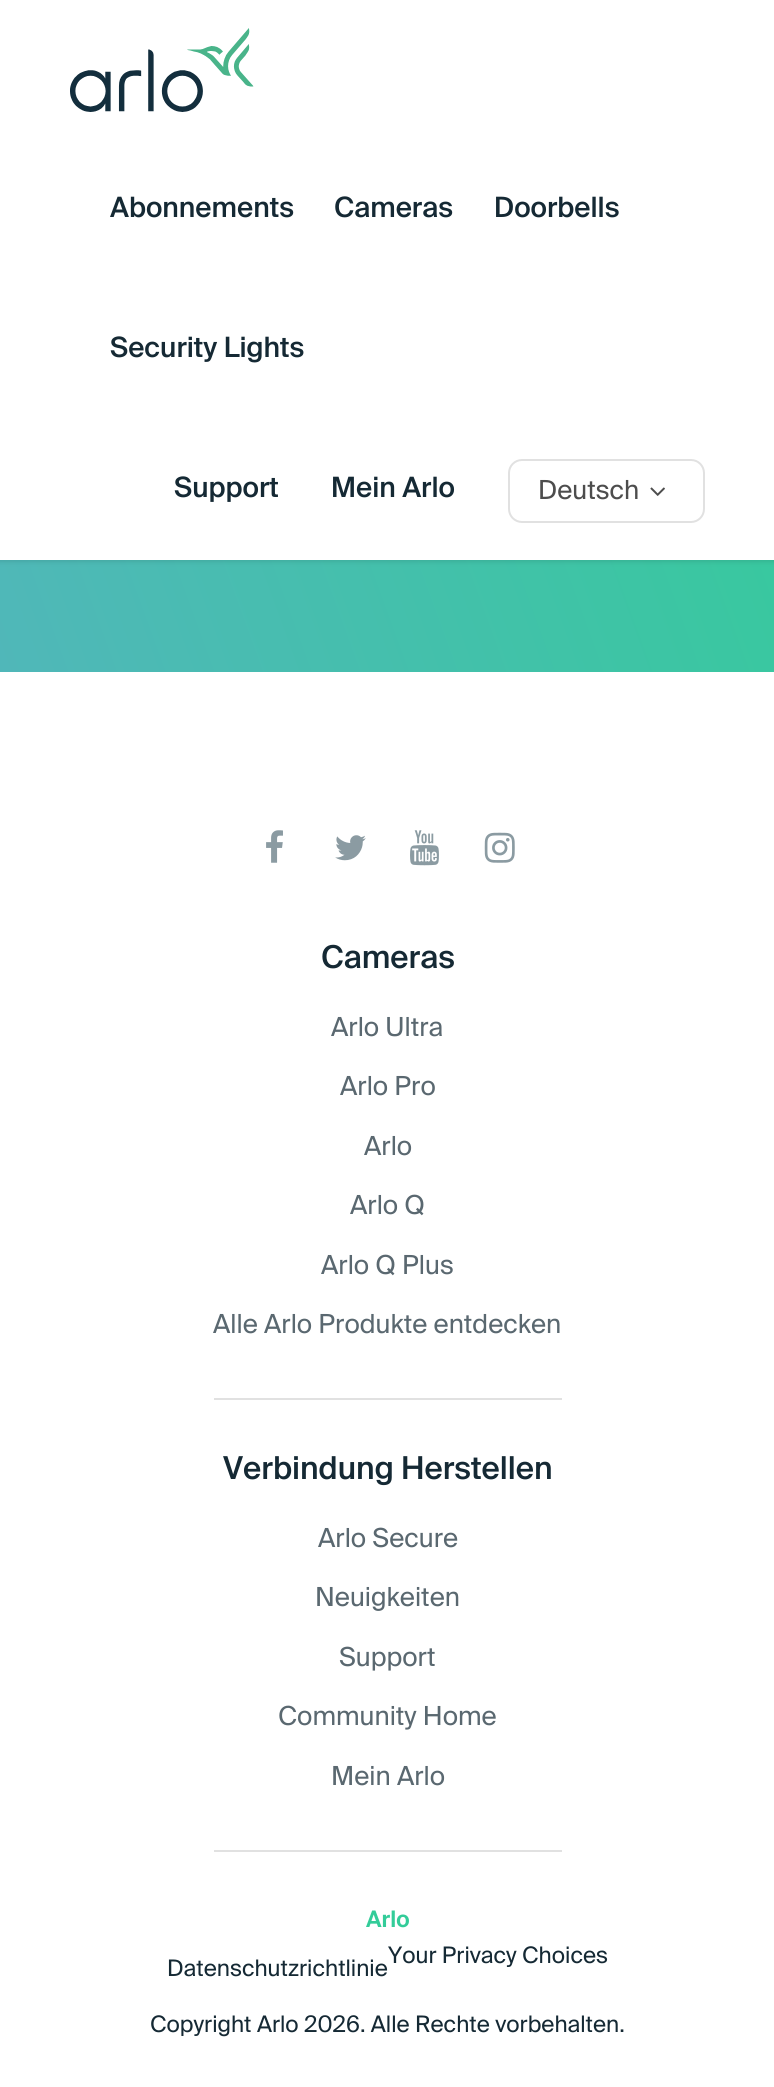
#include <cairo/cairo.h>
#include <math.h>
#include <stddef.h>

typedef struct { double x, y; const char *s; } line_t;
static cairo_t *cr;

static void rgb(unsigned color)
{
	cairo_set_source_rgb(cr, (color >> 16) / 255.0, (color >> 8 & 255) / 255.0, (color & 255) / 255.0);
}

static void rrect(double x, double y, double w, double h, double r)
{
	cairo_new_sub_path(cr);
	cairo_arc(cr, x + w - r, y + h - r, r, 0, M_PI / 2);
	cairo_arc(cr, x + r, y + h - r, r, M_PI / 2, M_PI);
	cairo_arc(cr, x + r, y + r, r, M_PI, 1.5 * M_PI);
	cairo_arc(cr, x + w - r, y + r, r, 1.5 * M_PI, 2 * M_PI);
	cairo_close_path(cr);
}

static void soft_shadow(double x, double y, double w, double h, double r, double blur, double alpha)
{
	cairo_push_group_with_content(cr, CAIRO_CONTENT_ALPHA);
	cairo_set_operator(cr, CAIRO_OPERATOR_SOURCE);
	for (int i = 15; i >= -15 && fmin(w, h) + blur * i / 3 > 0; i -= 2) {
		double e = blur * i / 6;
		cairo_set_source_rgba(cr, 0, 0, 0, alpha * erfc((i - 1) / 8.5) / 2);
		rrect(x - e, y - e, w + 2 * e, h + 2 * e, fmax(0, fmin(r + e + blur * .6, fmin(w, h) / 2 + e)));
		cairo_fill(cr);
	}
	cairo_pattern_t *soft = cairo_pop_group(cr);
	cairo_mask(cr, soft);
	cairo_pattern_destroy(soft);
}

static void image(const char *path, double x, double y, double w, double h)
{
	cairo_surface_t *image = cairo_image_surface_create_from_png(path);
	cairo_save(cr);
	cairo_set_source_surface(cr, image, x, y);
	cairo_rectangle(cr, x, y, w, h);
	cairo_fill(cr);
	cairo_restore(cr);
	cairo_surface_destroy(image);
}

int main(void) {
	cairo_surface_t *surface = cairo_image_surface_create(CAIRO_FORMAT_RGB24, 774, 2087);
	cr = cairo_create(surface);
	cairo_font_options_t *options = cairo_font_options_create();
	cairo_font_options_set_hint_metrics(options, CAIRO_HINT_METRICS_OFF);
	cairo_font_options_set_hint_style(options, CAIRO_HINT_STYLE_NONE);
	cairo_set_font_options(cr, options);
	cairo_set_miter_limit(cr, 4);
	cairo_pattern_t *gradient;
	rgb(0xffffff);
	cairo_paint(cr);
	gradient = cairo_pattern_create_linear(-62, 502, 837, 175);
	cairo_pattern_add_color_stop_rgba(gradient, 0, 0.314, 0.718, 0.725, 1);
	cairo_pattern_add_color_stop_rgba(gradient, 1, 0.2, 0.8, 0.6, 1);
	cairo_set_source(cr, gradient);
	cairo_pattern_destroy(gradient);
	cairo_rectangle(cr, 0, 560, 774, 112);
	cairo_fill(cr);
	rgb(0x000000);
	soft_shadow(-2, -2, 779, 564, 0, 2.5, 0.1);
	rgb(0xffffff);
	cairo_rectangle(cr, 0, 0, 774, 560);
	cairo_fill(cr);
	image("img/1.png", 70, 28, 184, 84);
	rrect(509, 460, 195, 62, 13);
	rgb(0xe1e1e1);
	cairo_stroke(cr);
	image("img/2.png", 650, 487, 15, 9);
	image("img/3.png", 266, 830, 17, 33);
	image("img/4.png", 335, 835, 31, 26);
	image("img/5.png", 410, 830, 29, 36);
	image("img/6.png", 484, 832, 31, 31);
	cairo_rectangle(cr, 214, 1398, 348, 2);
	cairo_fill(cr);
	cairo_rectangle(cr, 214, 1850, 348, 2);
	cairo_fill(cr);
	cairo_select_font_face(cr, "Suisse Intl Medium", CAIRO_FONT_SLANT_NORMAL, CAIRO_FONT_WEIGHT_NORMAL);
	cairo_set_font_size(cr, 28);
	rgb(0x152934);
	{
		static const line_t items[] = {
			{110, 217, "Abonnements"},
			{334, 217, "Cameras"},
			{494, 217, "Doorbells"},
			{110, 357, "Security Lights"},
			{174, 497, "Support"},
			{331, 497, "Mein Arlo"},
		};
		for (size_t i = 0; i < sizeof items / sizeof *items; i++) {
			cairo_move_to(cr, items[i].x, items[i].y);
			cairo_show_text(cr, items[i].s);
		}
	}
	cairo_select_font_face(cr, "Suisse Intl", CAIRO_FONT_SLANT_NORMAL, CAIRO_FONT_WEIGHT_NORMAL);
	cairo_set_font_size(cr, 26.25);
	rgb(0x4d4d4d);
	cairo_move_to(cr, 538, 499);
	cairo_show_text(cr, "Deutsch");
	cairo_select_font_face(cr, "Suisse Intl Medium", CAIRO_FONT_SLANT_NORMAL, CAIRO_FONT_WEIGHT_NORMAL);
	cairo_set_font_size(cr, 31.5);
	rgb(0x152934);
	cairo_move_to(cr, 321, 968);
	cairo_show_text(cr, "Cameras");
	cairo_select_font_face(cr, "Suisse Intl", CAIRO_FONT_SLANT_NORMAL, CAIRO_FONT_WEIGHT_NORMAL);
	cairo_set_font_size(cr, 26.25);
	rgb(0x5a6870);
	{
		static const line_t items[] = {
			{331, 1036, "Arlo Ultra"},
			{340, 1095, "Arlo Pro"},
			{364, 1155, "Arlo"},
			{350, 1214, "Arlo Q"},
			{321, 1274, "Arlo Q Plus"},
			{213, 1333, "Alle Arlo Produkte entdecken"},
		};
		for (size_t i = 0; i < sizeof items / sizeof *items; i++) {
			cairo_move_to(cr, items[i].x, items[i].y);
			cairo_show_text(cr, items[i].s);
		}
	}
	cairo_select_font_face(cr, "Suisse Intl Medium", CAIRO_FONT_SLANT_NORMAL, CAIRO_FONT_WEIGHT_NORMAL);
	cairo_set_font_size(cr, 31.5);
	rgb(0x152934);
	cairo_move_to(cr, 223, 1479);
	cairo_show_text(cr, "Verbindung Herstellen");
	cairo_select_font_face(cr, "Suisse Intl", CAIRO_FONT_SLANT_NORMAL, CAIRO_FONT_WEIGHT_NORMAL);
	cairo_set_font_size(cr, 26.25);
	rgb(0x5a6870);
	{
		static const line_t items[] = {
			{318, 1547, "Arlo Secure"},
			{315, 1606, "Neuigkeiten"},
			{339, 1666, "Support"},
			{278, 1725, "Community Home"},
			{331, 1785, "Mein Arlo"},
		};
		for (size_t i = 0; i < sizeof items / sizeof *items; i++) {
			cairo_move_to(cr, items[i].x, items[i].y);
			cairo_show_text(cr, items[i].s);
		}
	}
	cairo_select_font_face(cr, "Suisse Intl SemiBold", CAIRO_FONT_SLANT_NORMAL, CAIRO_FONT_WEIGHT_NORMAL);
	cairo_set_font_size(cr, 22.75);
	rgb(0x33cc99);
	cairo_move_to(cr, 366, 1927);
	cairo_show_text(cr, "Arlo");
	cairo_select_font_face(cr, "Suisse Intl", CAIRO_FONT_SLANT_NORMAL, CAIRO_FONT_WEIGHT_NORMAL);
	rgb(0x152934);
	{
		static const line_t items[] = {
			{167, 1976, "Datenschutzrichtlinie"},
			{388, 1963, "Your Privacy Choices"},
			{150, 2032, "Copyright Arlo 2026. Alle Rechte vorbehalten."},
		};
		for (size_t i = 0; i < sizeof items / sizeof *items; i++) {
			cairo_move_to(cr, items[i].x, items[i].y);
			cairo_show_text(cr, items[i].s);
		}
	}
	cairo_surface_write_to_png(surface, "page.png");
	cairo_font_options_destroy(options);
	cairo_destroy(cr);
	cairo_surface_destroy(surface);
	return 0;
}
